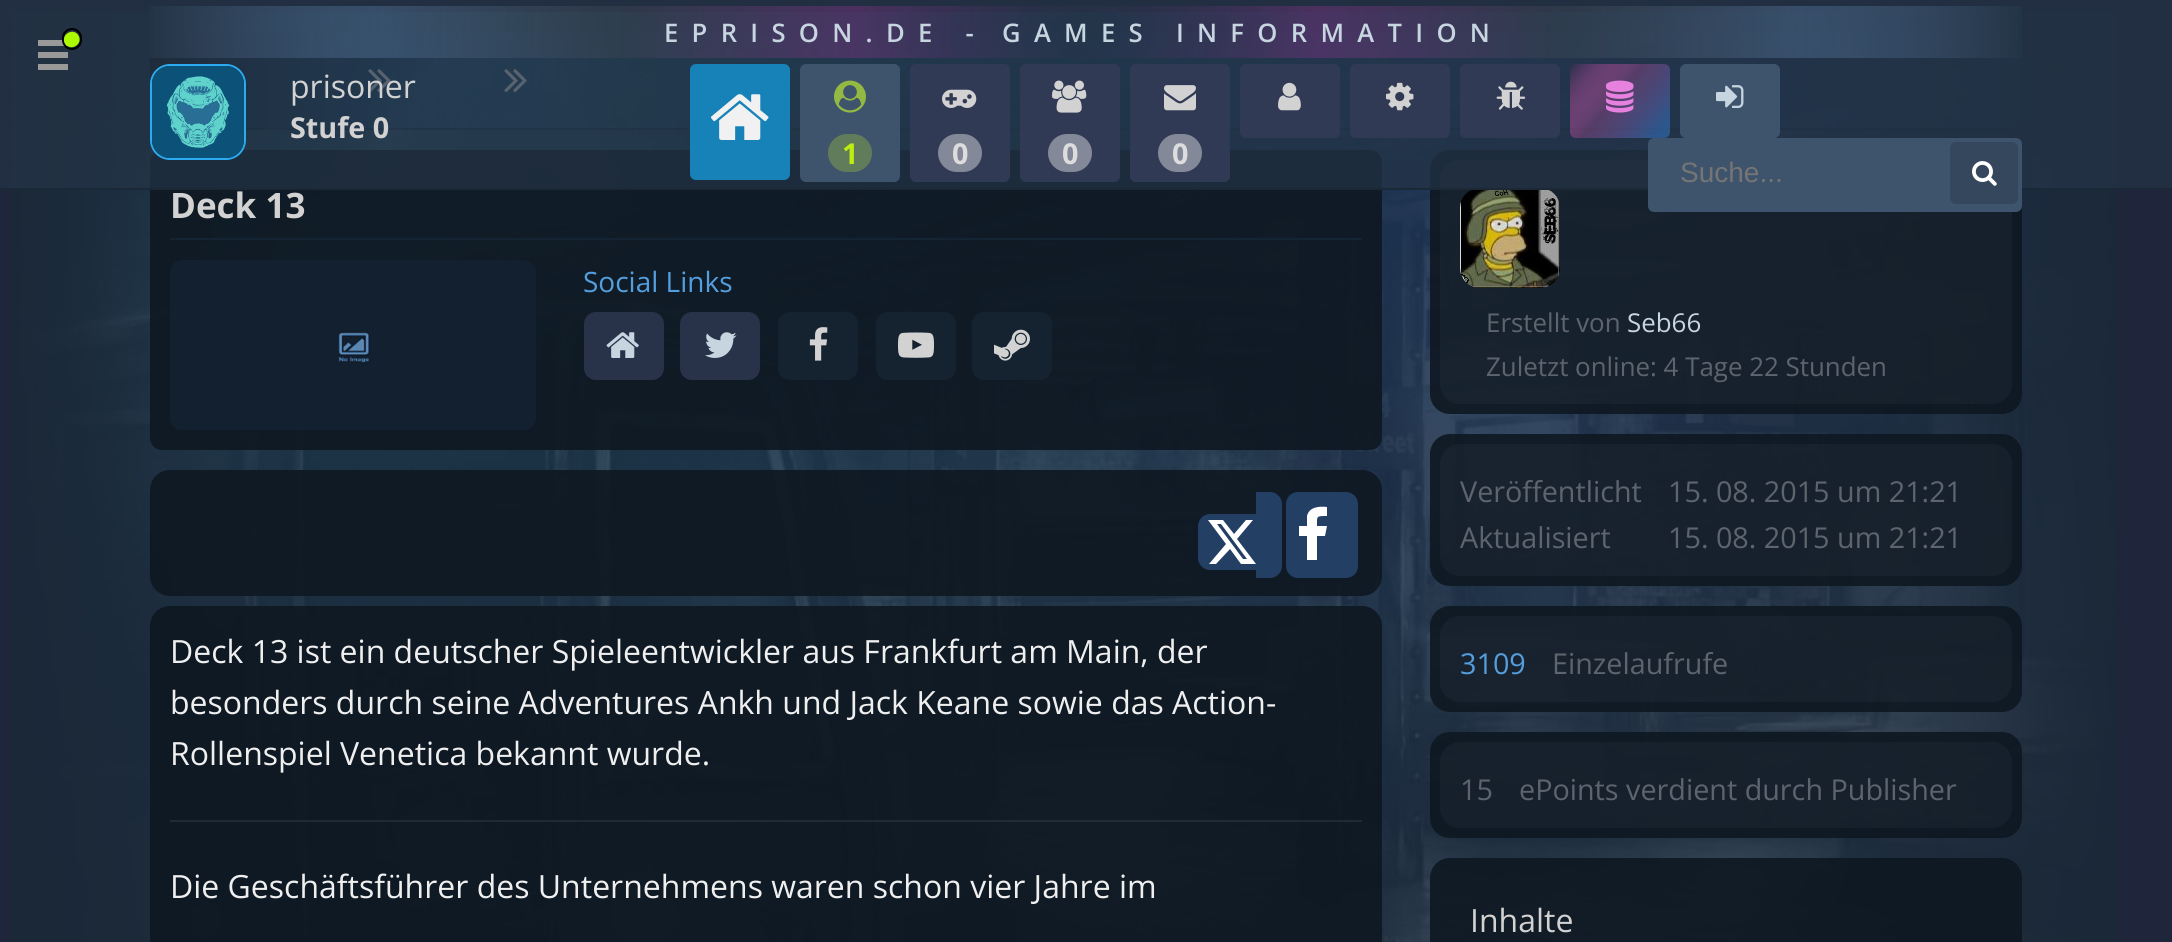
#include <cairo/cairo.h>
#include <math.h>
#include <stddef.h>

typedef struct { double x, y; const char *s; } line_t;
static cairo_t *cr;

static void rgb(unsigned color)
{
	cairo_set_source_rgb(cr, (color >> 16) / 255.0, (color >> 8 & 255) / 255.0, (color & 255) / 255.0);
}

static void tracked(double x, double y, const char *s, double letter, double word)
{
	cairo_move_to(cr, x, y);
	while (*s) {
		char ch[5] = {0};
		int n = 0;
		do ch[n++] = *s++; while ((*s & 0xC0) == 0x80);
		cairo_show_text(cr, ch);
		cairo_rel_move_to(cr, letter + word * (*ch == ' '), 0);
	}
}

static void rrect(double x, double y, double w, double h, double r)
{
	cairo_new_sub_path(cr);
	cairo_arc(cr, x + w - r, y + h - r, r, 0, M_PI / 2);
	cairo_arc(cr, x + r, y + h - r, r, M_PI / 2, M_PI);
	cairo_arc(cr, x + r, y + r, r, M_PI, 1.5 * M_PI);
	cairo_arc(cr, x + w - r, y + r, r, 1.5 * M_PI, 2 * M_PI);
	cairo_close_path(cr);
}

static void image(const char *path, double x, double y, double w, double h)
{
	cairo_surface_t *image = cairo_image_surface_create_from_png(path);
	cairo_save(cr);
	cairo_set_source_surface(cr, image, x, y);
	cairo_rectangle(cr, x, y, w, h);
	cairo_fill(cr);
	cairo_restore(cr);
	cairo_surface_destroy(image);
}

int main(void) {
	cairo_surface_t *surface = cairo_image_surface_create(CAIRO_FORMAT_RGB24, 2172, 942);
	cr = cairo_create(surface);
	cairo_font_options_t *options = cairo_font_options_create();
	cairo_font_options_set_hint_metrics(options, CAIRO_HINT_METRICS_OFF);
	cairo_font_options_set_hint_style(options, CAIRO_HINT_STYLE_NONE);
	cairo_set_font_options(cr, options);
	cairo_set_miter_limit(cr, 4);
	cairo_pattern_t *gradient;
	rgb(0x1f263c);
	cairo_paint(cr);
	image("img/13.png", 11, 12, 2105, 930);
	cairo_set_source_rgba(cr, 0.055, 0.094, 0.133, 0.34);
	cairo_rectangle(cr, 246, 128, 1766, 2);
	cairo_fill(cr);
	image("img/14.png", 368, 69, 23, 24);
	image("img/15.png", 504, 69, 23, 24);
	cairo_set_source_rgba(cr, 0.055, 0.094, 0.133, 0.9);
	rrect(150, 150, 1232, 300, 12);
	cairo_fill(cr);
	rrect(1430, 150, 592, 264, 20);
	cairo_fill(cr);
	cairo_set_source_rgba(cr, 0.208, 0.251, 0.31, 0.19);
	rrect(1440, 160, 572, 244, 20);
	cairo_fill(cr);
	cairo_set_source_rgba(cr, 0.141, 0.204, 0.278, 0.7);
	cairo_rectangle(cr, 0, 0, 2172, 188);
	cairo_fill(cr);
	rgb(0x999999);
	cairo_rectangle(cr, 38, 40, 30, 6);
	cairo_fill(cr);
	cairo_rectangle(cr, 38, 52, 30, 6);
	cairo_fill(cr);
	cairo_rectangle(cr, 38, 64, 30, 6);
	cairo_fill(cr);
	rrect(63, 29, 18, 20, 9);
	rgb(0x000000);
	cairo_stroke(cr);
	rgb(0xadfb02);
	cairo_new_path(cr);
	cairo_move_to(cr, 78.5, 35.5);
	cairo_curve_to(cr, 83.5, 44.5, 70, 52, 65, 43.5);
	cairo_curve_to(cr, 60, 34.5, 73.5, 27, 78.5, 35.5);
	cairo_close_path(cr);
	cairo_fill(cr);
	rgb(0x1b2836);
	cairo_rectangle(cr, 0, 188, 2172, 2);
	cairo_fill(cr);
	gradient = cairo_pattern_create_radial(0, 0, 0, 0, 0, 1);
	cairo_pattern_set_matrix(gradient, &(cairo_matrix_t){1.0 / 937, 0, 0, 1.0 / 749, -1.0 * 1086 / 937, -1.0 * 32 / 749});
	cairo_pattern_add_color_stop_rgba(gradient, 0, 0.141, 0.204, 0.278, 0.22);
	cairo_pattern_add_color_stop_rgba(gradient, 0.25, 0.576, 0.196, 0.569, 0.36);
	cairo_pattern_add_color_stop_rgba(gradient, 0.5, 0.259, 0.29, 0.333, 0.36);
	cairo_pattern_add_color_stop_rgba(gradient, 0.75, 0.298, 0.412, 0.541, 0.51);
	cairo_pattern_add_color_stop_rgba(gradient, 1, 0.141, 0.204, 0.278, 1);
	cairo_set_source(cr, gradient);
	cairo_pattern_destroy(gradient);
	cairo_rectangle(cr, 150, 6, 1872, 52);
	cairo_fill(cr);
	rrect(151, 65, 94, 94, 19);
	rgb(0x2bacf0);
	cairo_stroke(cr);
	image("img/1.png", 152, 66, 92, 92);
	rgb(0x1682b7);
	rrect(690, 64, 100, 116, 6);
	cairo_fill(cr);
	image("img/2.png", 710, 94, 59, 46);
	rgb(0x313a55);
	rrect(1240, 64, 100, 74, 6);
	cairo_fill(cr);
	image("img/3.png", 1278, 82, 23, 29);
	rrect(1350, 64, 100, 74, 6);
	cairo_fill(cr);
	image("img/4.png", 1386, 82, 28, 29);
	rrect(1460, 64, 100, 74, 6);
	cairo_fill(cr);
	image("img/5.png", 1496, 81, 30, 29);
	gradient = cairo_pattern_create_linear(1572, 61, 1668, 141);
	cairo_pattern_add_color_stop_rgba(gradient, 0, 0.149, 0.184, 0.286, 1);
	cairo_pattern_add_color_stop_rgba(gradient, 0.45, 0.984, 0.357, 0.769, 0.24);
	cairo_pattern_add_color_stop_rgba(gradient, 0.9, 0.22, 0.565, 0.969, 0.39);
	cairo_set_source(cr, gradient);
	cairo_pattern_destroy(gradient);
	rrect(1570, 64, 100, 74, 6);
	cairo_fill(cr);
	image("img/6.png", 1606, 80, 28, 33);
	rgb(0x3e536c);
	rrect(1680, 64, 100, 74, 6);
	cairo_fill(cr);
	image("img/7.png", 1716, 85, 28, 23);
	rrect(800, 64, 100, 118, 6);
	cairo_fill(cr);
	image("img/8.png", 834, 80, 32, 33);
	rgb(0x617c5b);
	rrect(828, 134, 44, 38, 19);
	cairo_fill(cr);
	rgb(0x313a55);
	rrect(910, 64, 100, 118, 6);
	cairo_fill(cr);
	image("img/9.png", 942, 89, 35, 19);
	rgb(0x838999);
	rrect(938, 134, 44, 38, 19);
	cairo_fill(cr);
	rgb(0x313a55);
	rrect(1020, 64, 100, 118, 6);
	cairo_fill(cr);
	image("img/10.png", 1052, 80, 35, 33);
	rgb(0x838999);
	rrect(1048, 134, 44, 38, 19);
	cairo_fill(cr);
	rgb(0x313a55);
	rrect(1130, 64, 100, 118, 6);
	cairo_fill(cr);
	image("img/11.png", 1164, 85, 32, 26);
	rgb(0x838999);
	rrect(1158, 134, 44, 38, 19);
	cairo_fill(cr);
	rgb(0x3e536c);
	rrect(1648, 138, 374, 74, 6);
	cairo_fill(cr);
	rgb(0x35475c);
	rrect(1951, 143, 66, 60, 5);
	cairo_fill_preserve(cr);
	cairo_stroke(cr);
	image("img/12.png", 1972, 161, 25, 25);
	rgb(0x142433);
	cairo_rectangle(cr, 170, 238, 1192, 2);
	cairo_fill(cr);
	image("img/16.png", 170, 260, 366, 170);
	rgb(0x28334a);
	rrect(584, 312, 80, 68, 12);
	cairo_fill(cr);
	image("img/17.png", 606, 332, 33, 26);
	rrect(680, 312, 80, 68, 12);
	cairo_fill(cr);
	image("img/18.png", 705, 332, 32, 26);
	rgb(0x152331);
	rrect(778, 312, 80, 68, 12);
	cairo_fill(cr);
	image("img/19.png", 809, 327, 19, 34);
	rrect(876, 312, 80, 68, 12);
	cairo_fill(cr);
	image("img/20.png", 898, 332, 36, 26);
	rrect(972, 312, 80, 68, 12);
	cairo_fill(cr);
	image("img/21.png", 994, 329, 36, 32);
	cairo_set_source_rgba(cr, 0.055, 0.094, 0.133, 0.9);
	rrect(150, 470, 1232, 126, 20);
	cairo_fill(cr);
	rgb(0x233f64);
	cairo_new_path(cr);
	cairo_move_to(cr, 1210, 514);
	cairo_line_to(cr, 1256, 514);
	cairo_line_to(cr, 1256, 570);
	cairo_line_to(cr, 1210, 570);
	cairo_curve_to(cr, 1203.5, 570, 1198, 564.5, 1198, 558);
	cairo_line_to(cr, 1198, 526);
	cairo_curve_to(cr, 1198, 519.5, 1203.5, 514, 1210, 514);
	cairo_close_path(cr);
	cairo_fill(cr);
	cairo_new_path(cr);
	cairo_move_to(cr, 1256, 492);
	cairo_line_to(cr, 1270, 492);
	cairo_curve_to(cr, 1276.5, 492, 1282, 497.5, 1282, 504);
	cairo_line_to(cr, 1282, 566);
	cairo_curve_to(cr, 1282, 572.5, 1276.5, 578, 1270, 578);
	cairo_line_to(cr, 1256, 578);
	cairo_close_path(cr);
	cairo_fill(cr);
	rgb(0xffffff);
	cairo_new_path(cr);
	cairo_move_to(cr, 1246, 520);
	cairo_line_to(cr, 1253, 520);
	cairo_line_to(cr, 1237, 539);
	cairo_line_to(cr, 1256, 564);
	cairo_line_to(cr, 1241, 564);
	cairo_line_to(cr, 1230, 549);
	cairo_line_to(cr, 1216, 564);
	cairo_line_to(cr, 1209, 564);
	cairo_line_to(cr, 1226, 544);
	cairo_line_to(cr, 1208, 520);
	cairo_line_to(cr, 1223, 520);
	cairo_line_to(cr, 1234, 534);
	cairo_close_path(cr);
	cairo_move_to(cr, 1243, 559);
	cairo_line_to(cr, 1247, 559);
	cairo_line_to(cr, 1221, 524);
	cairo_line_to(cr, 1217, 524);
	cairo_close_path(cr);
	cairo_fill(cr);
	rgb(0x233f64);
	rrect(1286, 492, 72, 86, 12);
	cairo_fill(cr);
	rgb(0xffffff);
	cairo_new_path(cr);
	cairo_move_to(cr, 1327, 507);
	cairo_line_to(cr, 1327, 516);
	cairo_curve_to(cr, 1316, 516, 1317, 516, 1317, 526);
	cairo_line_to(cr, 1327, 526);
	cairo_line_to(cr, 1325, 536);
	cairo_line_to(cr, 1317, 536);
	cairo_line_to(cr, 1317, 560);
	cairo_line_to(cr, 1307, 560);
	cairo_line_to(cr, 1307, 536);
	cairo_line_to(cr, 1299, 536);
	cairo_line_to(cr, 1299, 526);
	cairo_line_to(cr, 1307, 526);
	cairo_line_to(cr, 1307, 516);
	cairo_curve_to(cr, 1309, 507, 1319, 506, 1327, 507);
	cairo_close_path(cr);
	cairo_fill(cr);
	cairo_set_source_rgba(cr, 0.055, 0.094, 0.133, 0.9);
	rrect(150, 606, 1232, 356, 20);
	cairo_fill(cr);
	cairo_set_source_rgba(cr, 0.212, 0.251, 0.29, 0.44);
	cairo_rectangle(cr, 170, 820, 1192, 2);
	cairo_fill(cr);
	image("img/22.png", 1460, 190, 100, 98);
	cairo_set_source_rgba(cr, 0.055, 0.094, 0.133, 0.9);
	rrect(1430, 434, 592, 152, 20);
	cairo_fill(cr);
	cairo_set_source_rgba(cr, 0.208, 0.251, 0.31, 0.19);
	rrect(1440, 444, 572, 132, 20);
	cairo_fill(cr);
	cairo_set_source_rgba(cr, 0.055, 0.094, 0.133, 0.9);
	rrect(1430, 606, 592, 106, 20);
	cairo_fill(cr);
	cairo_set_source_rgba(cr, 0.208, 0.251, 0.31, 0.19);
	rrect(1440, 616, 572, 86, 20);
	cairo_fill(cr);
	cairo_set_source_rgba(cr, 0.055, 0.094, 0.133, 0.9);
	rrect(1430, 732, 592, 106, 20);
	cairo_fill(cr);
	cairo_set_source_rgba(cr, 0.208, 0.251, 0.31, 0.19);
	rrect(1440, 742, 572, 86, 20);
	cairo_fill(cr);
	cairo_set_source_rgba(cr, 0.055, 0.094, 0.133, 0.9);
	rrect(1430, 858, 592, 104, 20);
	cairo_fill(cr);
	cairo_select_font_face(cr, "Open Sans SemiBold", CAIRO_FONT_SLANT_NORMAL, CAIRO_FONT_WEIGHT_NORMAL);
	cairo_set_font_size(cr, 25.6);
	rgb(0xc7d5e0);
	tracked(664, 42, "EPRISON.DE -", 13.3, 0);
	tracked(1002, 42, "GAMES INFORMATION", 13.3, 0);
	cairo_select_font_face(cr, "Open Sans", CAIRO_FONT_SLANT_NORMAL, CAIRO_FONT_WEIGHT_NORMAL);
	cairo_set_font_size(cr, 32);
	rgb(0xd2d2d2);
	cairo_move_to(cr, 290, 98);
	cairo_show_text(cr, "prisoner");
	cairo_select_font_face(cr, "Open Sans", CAIRO_FONT_SLANT_NORMAL, CAIRO_FONT_WEIGHT_BOLD);
	cairo_set_font_size(cr, 28.75);
	cairo_move_to(cr, 290, 138);
	cairo_show_text(cr, "Stufe 0");
	rgb(0xbeee11);
	cairo_move_to(cr, 842, 164);
	cairo_show_text(cr, "1");
	rgb(0xdddddd);
	{
		static const line_t items[] = {
			{952, 164, "0"},
			{1062, 164, "0"},
			{1172, 164, "0"},
		};
		for (size_t i = 0; i < sizeof items / sizeof *items; i++) {
			cairo_move_to(cr, items[i].x, items[i].y);
			cairo_show_text(cr, items[i].s);
		}
	}
	cairo_select_font_face(cr, "Liberation Sans", CAIRO_FONT_SLANT_NORMAL, CAIRO_FONT_WEIGHT_NORMAL);
	cairo_set_font_size(cr, 28);
	rgb(0x757575);
	cairo_move_to(cr, 1680, 182);
	cairo_show_text(cr, "Suche...");
	cairo_select_font_face(cr, "Open Sans", CAIRO_FONT_SLANT_NORMAL, CAIRO_FONT_WEIGHT_BOLD);
	cairo_set_font_size(cr, 35);
	rgb(0xd2d2d2);
	cairo_move_to(cr, 170, 218);
	cairo_show_text(cr, "Deck 13");
	cairo_select_font_face(cr, "Open Sans", CAIRO_FONT_SLANT_NORMAL, CAIRO_FONT_WEIGHT_NORMAL);
	cairo_set_font_size(cr, 28);
	rgb(0x559edd);
	cairo_move_to(cr, 583, 292);
	cairo_show_text(cr, "Social Links");
	cairo_set_font_size(cr, 32);
	rgb(0xefefef);
	{
		static const line_t items[] = {
			{170, 663, "Deck 13 ist ein deutscher Spieleentwickler aus Frankfurt am Main, der"},
			{170, 714, "besonders durch seine Adventures Ankh und Jack Keane sowie das Action-"},
			{170, 765, "Rollenspiel Venetica bekannt wurde."},
			{170, 898, "Die Geschäftsführer des Unternehmens waren schon vier Jahre im"},
		};
		for (size_t i = 0; i < sizeof items / sizeof *items; i++) {
			cairo_move_to(cr, items[i].x, items[i].y);
			cairo_show_text(cr, items[i].s);
		}
	}
	cairo_set_font_size(cr, 25.9);
	rgb(0x5d646d);
	cairo_move_to(cr, 1486, 332);
	cairo_show_text(cr, "Erstellt von");
	rgb(0xc7d5e0);
	cairo_move_to(cr, 1627, 332);
	cairo_show_text(cr, "Seb66");
	rgb(0x5d646d);
	cairo_move_to(cr, 1486, 376);
	cairo_show_text(cr, "Zuletzt online: 4 Tage 22 Stunden");
	cairo_set_font_size(cr, 28.75);
	{
		static const line_t items[] = {
			{1460, 502, "Veröffentlicht"},
			{1460, 548, "Aktualisiert"},
			{1668, 502, "15. 08. 2015 um 21:21"},
			{1668, 548, "15. 08. 2015 um 21:21"},
		};
		for (size_t i = 0; i < sizeof items / sizeof *items; i++) {
			cairo_move_to(cr, items[i].x, items[i].y);
			cairo_show_text(cr, items[i].s);
		}
	}
	rgb(0x559edd);
	cairo_move_to(cr, 1460, 674);
	cairo_show_text(cr, "3109");
	rgb(0x5d646d);
	{
		static const line_t items[] = {
			{1552, 674, "Einzelaufrufe"},
			{1460, 800, "15"},
			{1519, 800, "ePoints verdient durch Publisher"},
		};
		for (size_t i = 0; i < sizeof items / sizeof *items; i++) {
			cairo_move_to(cr, items[i].x, items[i].y);
			cairo_show_text(cr, items[i].s);
		}
	}
	cairo_set_font_size(cr, 32);
	rgb(0xd2d2d2);
	cairo_move_to(cr, 1470, 932);
	cairo_show_text(cr, "Inhalte");
	cairo_surface_write_to_png(surface, "page.png");
	cairo_font_options_destroy(options);
	cairo_destroy(cr);
	cairo_surface_destroy(surface);
	return 0;
}
